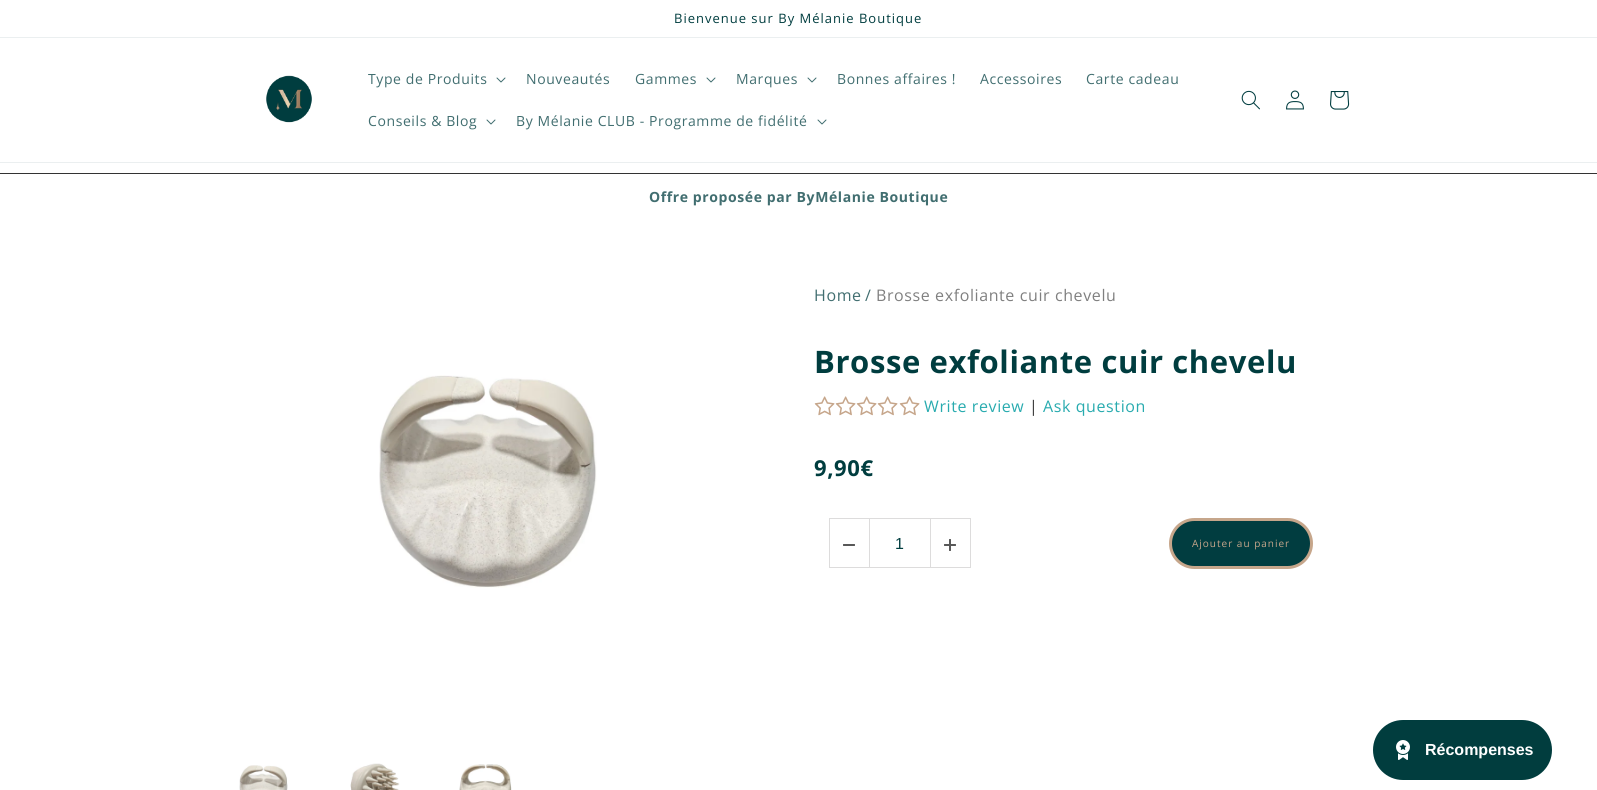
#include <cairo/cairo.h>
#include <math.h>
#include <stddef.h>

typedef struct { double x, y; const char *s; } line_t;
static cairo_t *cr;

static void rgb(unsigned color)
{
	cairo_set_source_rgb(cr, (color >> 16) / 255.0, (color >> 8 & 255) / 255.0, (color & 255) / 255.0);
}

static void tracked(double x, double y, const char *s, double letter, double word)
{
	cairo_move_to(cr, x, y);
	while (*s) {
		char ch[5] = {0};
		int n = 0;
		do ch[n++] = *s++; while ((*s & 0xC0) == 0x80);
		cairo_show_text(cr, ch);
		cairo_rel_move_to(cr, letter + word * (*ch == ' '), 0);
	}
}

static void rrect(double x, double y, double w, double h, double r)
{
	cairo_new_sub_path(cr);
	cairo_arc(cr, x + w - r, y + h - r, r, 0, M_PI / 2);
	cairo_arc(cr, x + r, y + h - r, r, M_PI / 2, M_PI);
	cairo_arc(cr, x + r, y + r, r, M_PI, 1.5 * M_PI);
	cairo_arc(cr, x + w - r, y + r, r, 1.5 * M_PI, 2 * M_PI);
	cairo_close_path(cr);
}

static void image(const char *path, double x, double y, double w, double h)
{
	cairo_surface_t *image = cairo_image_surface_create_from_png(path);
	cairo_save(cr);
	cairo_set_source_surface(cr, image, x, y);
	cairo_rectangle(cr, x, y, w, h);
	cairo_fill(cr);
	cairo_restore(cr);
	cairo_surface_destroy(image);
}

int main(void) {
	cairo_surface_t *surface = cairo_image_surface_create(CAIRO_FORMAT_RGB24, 1597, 790);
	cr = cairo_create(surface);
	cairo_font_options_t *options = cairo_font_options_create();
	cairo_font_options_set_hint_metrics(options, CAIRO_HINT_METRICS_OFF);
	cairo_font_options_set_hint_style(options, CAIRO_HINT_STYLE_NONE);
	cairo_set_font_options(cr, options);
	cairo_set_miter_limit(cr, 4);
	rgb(0xffffff);
	cairo_paint(cr);
	rgb(0xebeff0);
	cairo_rectangle(cr, 0, 37, 1597, 1);
	cairo_fill(cr);
	cairo_rectangle(cr, 0, 162, 1597, 1);
	cairo_fill(cr);
	image("img/1.png", 266, 75, 46, 48);
	image("img/2.png", 496, 77, 10, 6);
	image("img/2.png", 706, 77, 10, 6);
	image("img/2.png", 807, 77, 10, 6);
	image("img/2.png", 486, 119, 10, 6);
	image("img/2.png", 817, 119, 10, 6);
	image("img/3.png", 1241, 90, 19, 20);
	image("img/4.png", 1286, 90, 18, 20);
	image("img/5.png", 1330, 91, 20, 19);
	rgb(0x333333);
	cairo_rectangle(cr, 0, 173, 1597, 1);
	cairo_fill(cr);
	image("img/6.png", 379, 375, 218, 213);
	image("img/7.png", 239, 765, 49, 25);
	image("img/8.png", 350, 763, 50, 27);
	image("img/9.png", 459, 764, 53, 26);
	image("img/10.png", 814, 396, 21, 20);
	image("img/10.png", 835, 396, 21, 20);
	image("img/10.png", 856, 396, 21, 20);
	image("img/10.png", 877, 396, 21, 20);
	image("img/10.png", 899, 396, 21, 20);
	cairo_rectangle(cr, 829.5, 518.5, 141, 49);
	rgb(0xdddcdc);
	cairo_set_line_width(cr, 1);
	cairo_stroke(cr);
	cairo_rectangle(cr, 869, 519, 1, 48);
	cairo_fill(cr);
	image("img/11.png", 843, 544, 12, 2);
	cairo_rectangle(cr, 930, 519, 1, 48);
	cairo_fill(cr);
	image("img/12.png", 944, 539, 12, 12);
	rgb(0x013d40);
	rrect(1170.5, 519.5, 141, 48, 24);
	cairo_fill_preserve(cr);
	rgb(0xc6a68b);
	cairo_set_line_width(cr, 3);
	cairo_stroke(cr);
	rgb(0x013d3e);
	rrect(1373, 720, 179, 60, 30);
	cairo_fill(cr);
	image("img/13.png", 1396, 740, 14, 20);
	cairo_select_font_face(cr, "Open Sans", CAIRO_FONT_SLANT_NORMAL, CAIRO_FONT_WEIGHT_NORMAL);
	cairo_set_font_size(cr, 13);
	rgb(0x003d3f);
	tracked(674, 23, "Bienvenue sur By Mélanie Boutique", 1, 0);
	cairo_set_font_size(cr, 14);
	rgb(0x416e70);
	{
		static const line_t items[] = {
			{368, 84, "Type de Produits"},
			{526, 84, "Nouveautés"},
			{635, 84, "Gammes"},
			{736, 84, "Marques"},
			{837, 84, "Bonnes affaires !"},
			{980, 84, "Accessoires"},
			{1086, 84, "Carte cadeau"},
			{368, 126, "Conseils & Blog"},
			{516, 126, "By Mélanie CLUB - Programme de fidélité"},
		};
		for (size_t i = 0; i < sizeof items / sizeof *items; i++) {
			tracked(items[i].x, items[i].y, items[i].s, 0.6, 0);
		}
	}
	cairo_select_font_face(cr, "Open Sans", CAIRO_FONT_SLANT_NORMAL, CAIRO_FONT_WEIGHT_BOLD);
	tracked(649, 202, "Offre proposée par ByMélanie Boutique", 0.6, 0);
	cairo_select_font_face(cr, "Open Sans", CAIRO_FONT_SLANT_NORMAL, CAIRO_FONT_WEIGHT_NORMAL);
	cairo_set_font_size(cr, 16);
	tracked(814, 301, "Home", 0.6, 0);
	tracked(865, 301, "/", 0.6, 0);
	rgb(0x808080);
	tracked(876, 301, "Brosse exfoliante cuir chevelu", 0.6, 0);
	cairo_select_font_face(cr, "Open Sans", CAIRO_FONT_SLANT_NORMAL, CAIRO_FONT_WEIGHT_BOLD);
	cairo_set_font_size(cr, 31);
	rgb(0x003d3f);
	tracked(814, 373, "Brosse exfoliante cuir chevelu", 0.6, 0);
	cairo_select_font_face(cr, "Open Sans", CAIRO_FONT_SLANT_NORMAL, CAIRO_FONT_WEIGHT_NORMAL);
	cairo_set_font_size(cr, 16);
	rgb(0x28abaf);
	tracked(924, 412, "Write review", 0.6, 0);
	rgb(0x353535);
	tracked(1029, 412, "|", 0.6, 0);
	rgb(0x28abaf);
	tracked(1043, 412, "Ask question", 0.6, 0);
	cairo_select_font_face(cr, "Open Sans", CAIRO_FONT_SLANT_NORMAL, CAIRO_FONT_WEIGHT_BOLD);
	cairo_set_font_size(cr, 22);
	rgb(0x003d3f);
	tracked(814, 476, "9,90€", 0.6, 0);
	cairo_select_font_face(cr, "Liberation Sans", CAIRO_FONT_SLANT_NORMAL, CAIRO_FONT_WEIGHT_NORMAL);
	cairo_set_font_size(cr, 16);
	cairo_move_to(cr, 895, 549);
	cairo_show_text(cr, "1");
	cairo_select_font_face(cr, "Open Sans", CAIRO_FONT_SLANT_NORMAL, CAIRO_FONT_WEIGHT_NORMAL);
	cairo_set_font_size(cr, 10);
	rgb(0xc6a68b);
	tracked(1192, 547, "Ajouter au panier", 1, 0);
	cairo_select_font_face(cr, "Liberation Sans", CAIRO_FONT_SLANT_NORMAL, CAIRO_FONT_WEIGHT_BOLD);
	cairo_set_font_size(cr, 16);
	rgb(0xffffff);
	cairo_move_to(cr, 1425, 755);
	cairo_show_text(cr, "Récompenses");
	cairo_surface_write_to_png(surface, "page.png");
	cairo_font_options_destroy(options);
	cairo_destroy(cr);
	cairo_surface_destroy(surface);
	return 0;
}
